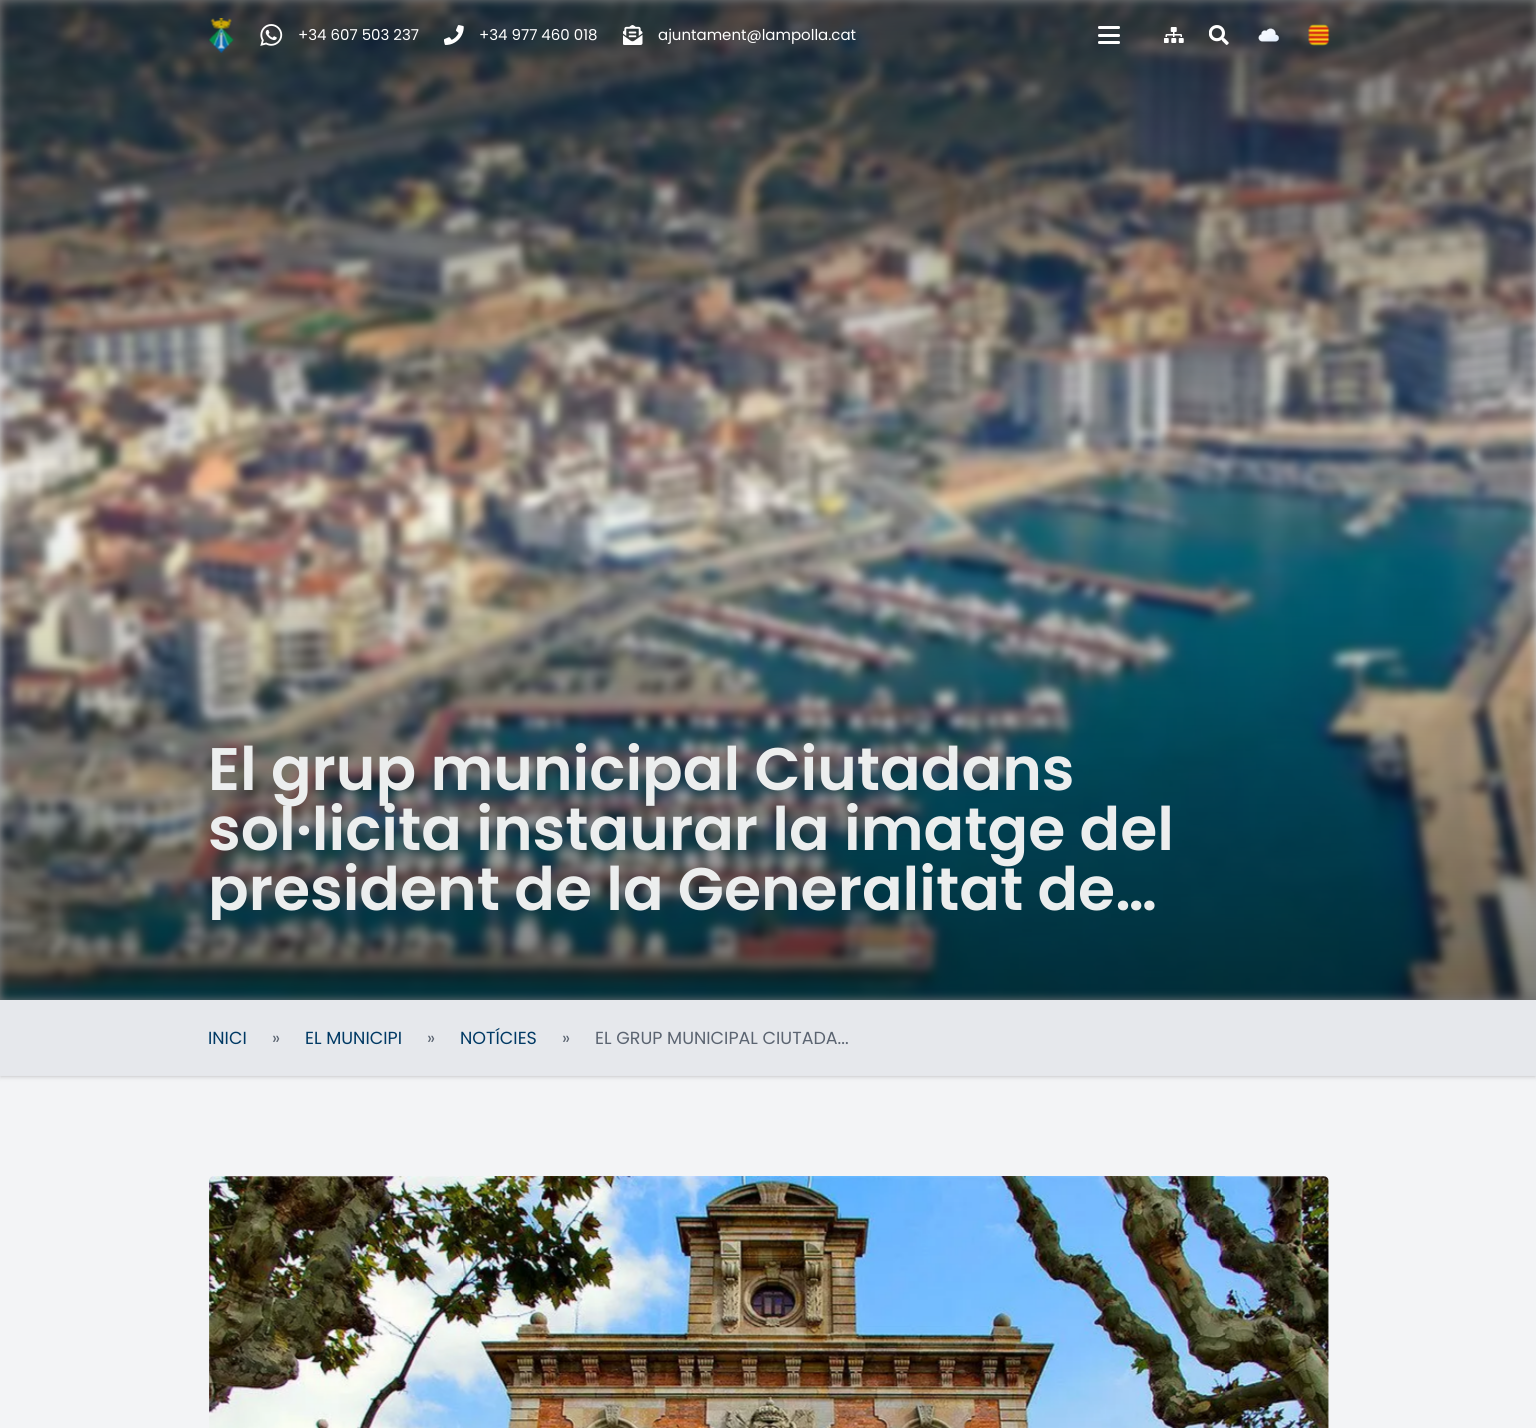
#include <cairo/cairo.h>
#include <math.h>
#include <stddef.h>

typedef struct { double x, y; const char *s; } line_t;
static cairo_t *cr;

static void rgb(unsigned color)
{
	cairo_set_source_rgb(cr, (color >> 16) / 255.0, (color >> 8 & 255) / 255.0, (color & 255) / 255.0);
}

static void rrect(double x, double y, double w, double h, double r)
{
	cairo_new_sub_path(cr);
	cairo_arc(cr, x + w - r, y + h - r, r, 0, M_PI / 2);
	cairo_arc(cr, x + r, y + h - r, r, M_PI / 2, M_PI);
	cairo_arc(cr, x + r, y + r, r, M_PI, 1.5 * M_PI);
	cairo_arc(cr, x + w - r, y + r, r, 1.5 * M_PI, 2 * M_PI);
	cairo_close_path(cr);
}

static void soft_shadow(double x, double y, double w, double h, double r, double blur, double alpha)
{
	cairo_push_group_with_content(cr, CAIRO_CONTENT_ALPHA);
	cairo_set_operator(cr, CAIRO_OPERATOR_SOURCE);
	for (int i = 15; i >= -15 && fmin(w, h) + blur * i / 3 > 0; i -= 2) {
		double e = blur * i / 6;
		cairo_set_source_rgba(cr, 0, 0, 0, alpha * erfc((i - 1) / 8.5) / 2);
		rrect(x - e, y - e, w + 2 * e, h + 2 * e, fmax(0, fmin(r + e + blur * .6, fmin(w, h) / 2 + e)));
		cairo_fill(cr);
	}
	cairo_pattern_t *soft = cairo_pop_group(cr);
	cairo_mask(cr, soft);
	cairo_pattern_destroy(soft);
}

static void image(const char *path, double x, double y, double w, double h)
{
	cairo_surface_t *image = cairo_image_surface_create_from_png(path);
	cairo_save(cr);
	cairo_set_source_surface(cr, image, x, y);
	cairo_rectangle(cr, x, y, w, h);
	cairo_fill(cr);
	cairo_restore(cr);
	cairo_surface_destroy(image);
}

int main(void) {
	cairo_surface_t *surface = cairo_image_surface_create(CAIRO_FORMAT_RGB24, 1536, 1428);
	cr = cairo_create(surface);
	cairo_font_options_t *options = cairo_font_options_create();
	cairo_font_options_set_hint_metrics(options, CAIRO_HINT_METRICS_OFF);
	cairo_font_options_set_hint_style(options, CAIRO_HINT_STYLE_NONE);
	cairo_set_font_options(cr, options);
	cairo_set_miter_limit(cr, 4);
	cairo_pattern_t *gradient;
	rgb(0xf3f4f6);
	cairo_paint(cr);
	rgb(0x000000);
	soft_shadow(1, 1003, 1534, 73, 0, 1, 0.1);
	soft_shadow(0, 1001, 1536, 77, 0, 2, 0.1);
	image("img/9.png", 0, 0, 1536, 1000);
	gradient = cairo_pattern_create_linear(768, 0, 768, 1000);
	cairo_pattern_add_color_stop_rgba(gradient, 0, 0, 0, 0, 0.5);
	cairo_pattern_add_color_stop_rgba(gradient, 0.5, 0, 0, 0, 0);
	cairo_pattern_add_color_stop_rgba(gradient, 1, 0, 0, 0, 0.5);
	cairo_set_source(cr, gradient);
	cairo_pattern_destroy(gradient);
	cairo_rectangle(cr, 0, 0, 1536, 1000);
	cairo_fill(cr);
	image("img/1.png", 208, 18, 26, 35);
	image("img/2.png", 260, 24, 23, 22);
	image("img/3.png", 444, 25, 20, 20);
	image("img/4.png", 623, 25, 20, 20);
	rgb(0xffffff);
	cairo_new_path(cr);
	cairo_move_to(cr, 1099.5, 26);
	cairo_line_to(cr, 1109, 26);
	cairo_line_to(cr, 1109, 29);
	cairo_line_to(cr, 1099.5, 29);
	cairo_curve_to(cr, 1098.5, 29, 1098, 28.5, 1098, 27.5);
	cairo_curve_to(cr, 1098, 26.5, 1098.5, 26, 1099.5, 26);
	cairo_close_path(cr);
	cairo_fill(cr);
	cairo_new_path(cr);
	cairo_move_to(cr, 1109, 26);
	cairo_line_to(cr, 1118.5, 26);
	cairo_curve_to(cr, 1119.5, 26, 1120, 26.5, 1120, 27.5);
	cairo_curve_to(cr, 1120, 28.5, 1119.5, 29, 1118.5, 29);
	cairo_line_to(cr, 1109, 29);
	cairo_close_path(cr);
	cairo_fill(cr);
	cairo_new_path(cr);
	cairo_move_to(cr, 1099.5, 34);
	cairo_line_to(cr, 1109, 34);
	cairo_line_to(cr, 1109, 37);
	cairo_line_to(cr, 1099.5, 37);
	cairo_curve_to(cr, 1098.5, 37, 1098, 36.5, 1098, 35.5);
	cairo_curve_to(cr, 1098, 34.5, 1098.5, 34, 1099.5, 34);
	cairo_close_path(cr);
	cairo_fill(cr);
	cairo_new_path(cr);
	cairo_move_to(cr, 1109, 34);
	cairo_line_to(cr, 1118.5, 34);
	cairo_curve_to(cr, 1119.5, 34, 1120, 34.5, 1120, 35.5);
	cairo_curve_to(cr, 1120, 36.5, 1119.5, 37, 1118.5, 37);
	cairo_line_to(cr, 1109, 37);
	cairo_close_path(cr);
	cairo_fill(cr);
	cairo_new_path(cr);
	cairo_move_to(cr, 1099.5, 41);
	cairo_line_to(cr, 1109, 41);
	cairo_line_to(cr, 1109, 44);
	cairo_line_to(cr, 1099.5, 44);
	cairo_curve_to(cr, 1098.5, 44, 1098, 43.5, 1098, 42.5);
	cairo_curve_to(cr, 1098, 41.5, 1098.5, 41, 1099.5, 41);
	cairo_close_path(cr);
	cairo_fill(cr);
	cairo_new_path(cr);
	cairo_move_to(cr, 1109, 41);
	cairo_line_to(cr, 1118.5, 41);
	cairo_curve_to(cr, 1119.5, 41, 1120, 41.5, 1120, 42.5);
	cairo_curve_to(cr, 1120, 43.5, 1119.5, 44, 1118.5, 44);
	cairo_line_to(cr, 1109, 44);
	cairo_close_path(cr);
	cairo_fill(cr);
	image("img/5.png", 1164, 27, 20, 16);
	image("img/6.png", 1209, 25, 20, 20);
	image("img/7.png", 1258, 28, 21, 14);
	image("img/8.png", 1308, 24, 22, 22);
	rgb(0xe6e8ec);
	cairo_rectangle(cr, 0, 1000, 1536, 75);
	cairo_fill(cr);
	rgb(0xe5e7eb);
	cairo_rectangle(cr, 0, 1075, 1536, 1);
	cairo_fill(cr);
	image("img/10.png", 209, 1176, 1120, 252);
	cairo_select_font_face(cr, "Poppins", CAIRO_FONT_SLANT_NORMAL, CAIRO_FONT_WEIGHT_NORMAL);
	cairo_set_font_size(cr, 15);
	rgb(0xffffff);
	{
		static const line_t items[] = {
			{298, 40, "+34 607 503 237"},
			{479, 40, "+34 977 460 018"},
			{658, 40, "ajuntament@lampolla.cat"},
		};
		for (size_t i = 0; i < sizeof items / sizeof *items; i++) {
			cairo_move_to(cr, items[i].x, items[i].y);
			cairo_show_text(cr, items[i].s);
		}
	}
	cairo_select_font_face(cr, "Poppins SemiBold", CAIRO_FONT_SLANT_NORMAL, CAIRO_FONT_WEIGHT_NORMAL);
	cairo_set_font_size(cr, 60);
	rgb(0xeceeee);
	cairo_move_to(cr, 208, 790);
	cairo_show_text(cr, "El grup municipal Ciutadans");
	cairo_move_to(cr, 208, 850);
	cairo_show_text(cr, "sol·licita instaurar la imatge del");
	cairo_save(cr);
	cairo_rectangle(cr, 209, 740, 1120, 180);
	cairo_clip(cr);
	cairo_move_to(cr, 208, 910);
	cairo_show_text(cr, "president de la Generalitat de…");
	cairo_restore(cr);
	cairo_select_font_face(cr, "Poppins", CAIRO_FONT_SLANT_NORMAL, CAIRO_FONT_WEIGHT_NORMAL);
	cairo_set_font_size(cr, 17.5);
	rgb(0x003964);
	cairo_move_to(cr, 208, 1044);
	cairo_show_text(cr, "INICI");
	rgb(0x5b6471);
	cairo_move_to(cr, 272, 1044);
	cairo_show_text(cr, "»");
	rgb(0x003964);
	cairo_move_to(cr, 305, 1044);
	cairo_show_text(cr, "EL MUNICIPI");
	rgb(0x5b6471);
	cairo_move_to(cr, 427, 1044);
	cairo_show_text(cr, "»");
	rgb(0x003964);
	cairo_move_to(cr, 460, 1044);
	cairo_show_text(cr, "NOTÍCIES");
	rgb(0x5b6471);
	cairo_move_to(cr, 562, 1044);
	cairo_show_text(cr, "»");
	cairo_move_to(cr, 595, 1044);
	cairo_show_text(cr, "EL GRUP MUNICIPAL CIUTADA...");
	cairo_surface_write_to_png(surface, "page.png");
	cairo_font_options_destroy(options);
	cairo_destroy(cr);
	cairo_surface_destroy(surface);
	return 0;
}
